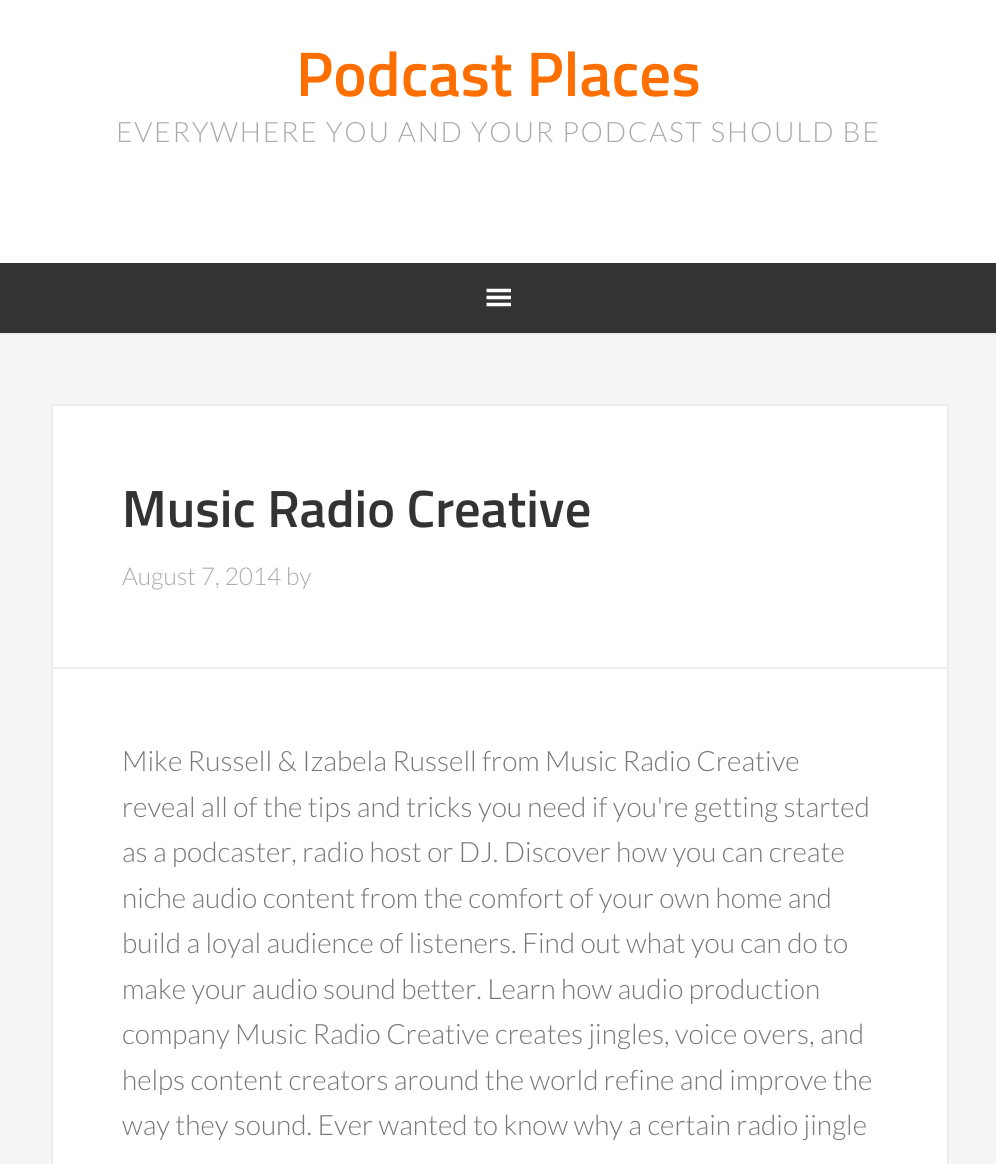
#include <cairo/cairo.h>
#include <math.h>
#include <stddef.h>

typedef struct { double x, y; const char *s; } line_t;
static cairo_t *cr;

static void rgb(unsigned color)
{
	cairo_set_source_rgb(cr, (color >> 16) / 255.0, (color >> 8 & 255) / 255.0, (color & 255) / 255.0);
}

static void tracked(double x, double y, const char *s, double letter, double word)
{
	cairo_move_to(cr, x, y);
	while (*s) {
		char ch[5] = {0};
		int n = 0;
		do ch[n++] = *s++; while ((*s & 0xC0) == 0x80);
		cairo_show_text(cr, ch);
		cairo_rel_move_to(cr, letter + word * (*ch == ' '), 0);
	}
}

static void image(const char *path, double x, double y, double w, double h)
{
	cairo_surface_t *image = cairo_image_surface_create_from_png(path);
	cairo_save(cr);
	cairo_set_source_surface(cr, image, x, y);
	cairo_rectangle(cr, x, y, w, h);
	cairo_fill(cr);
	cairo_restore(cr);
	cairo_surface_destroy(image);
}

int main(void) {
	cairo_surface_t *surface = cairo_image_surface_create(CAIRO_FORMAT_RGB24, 996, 1164);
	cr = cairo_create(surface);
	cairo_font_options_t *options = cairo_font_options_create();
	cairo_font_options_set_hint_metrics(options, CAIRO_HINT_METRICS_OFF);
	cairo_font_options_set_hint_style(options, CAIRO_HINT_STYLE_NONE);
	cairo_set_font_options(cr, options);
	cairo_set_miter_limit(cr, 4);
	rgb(0xffffff);
	cairo_paint(cr);
	rgb(0x333333);
	cairo_rectangle(cr, 0, 263, 996, 70);
	cairo_fill(cr);
	image("img/1.png", 486, 288, 25, 19);
	rgb(0xf5f5f5);
	cairo_rectangle(cr, 0, 335, 996, 829);
	cairo_fill(cr);
	rgb(0xececec);
	cairo_rectangle(cr, 0, 333, 996, 2);
	cairo_fill(cr);
	rgb(0xffffff);
	cairo_rectangle(cr, 52, 405, 896, 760);
	cairo_fill_preserve(cr);
	rgb(0xececec);
	cairo_stroke(cr);
	cairo_rectangle(cr, 53, 667, 894, 2);
	cairo_fill(cr);
	cairo_select_font_face(cr, "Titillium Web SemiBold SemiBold", CAIRO_FONT_SLANT_NORMAL, CAIRO_FONT_WEIGHT_NORMAL);
	cairo_set_font_size(cr, 63);
	rgb(0xff6f00);
	cairo_move_to(cr, 296, 96);
	cairo_show_text(cr, "Podcast Places");
	cairo_select_font_face(cr, "Lato Light", CAIRO_FONT_SLANT_NORMAL, CAIRO_FONT_WEIGHT_NORMAL);
	cairo_set_font_size(cr, 28);
	rgb(0xaaaaaa);
	tracked(116, 142, "EVERYWHERE YOU AND YOUR PODCAST SHOULD BE", 1.75, 0);
	cairo_select_font_face(cr, "Titillium Web SemiBold SemiBold", CAIRO_FONT_SLANT_NORMAL, CAIRO_FONT_WEIGHT_NORMAL);
	cairo_set_font_size(cr, 52.5);
	rgb(0x333333);
	cairo_move_to(cr, 122, 527);
	cairo_show_text(cr, "Music Radio Creative");
	cairo_select_font_face(cr, "Lato Light", CAIRO_FONT_SLANT_NORMAL, CAIRO_FONT_WEIGHT_NORMAL);
	cairo_set_font_size(cr, 24.5);
	rgb(0xaaaaaa);
	cairo_move_to(cr, 122, 585);
	cairo_show_text(cr, "August 7, 2014 by");
	cairo_set_font_size(cr, 28);
	rgb(0x777777);
	{
		static const line_t items[] = {
			{122, 771, "Mike Russell & Izabela Russell from Music Radio Creative"},
			{122, 817, "reveal all of the tips and tricks you need if you're getting started"},
			{122, 862, "as a podcaster, radio host or DJ. Discover how you can create"},
			{122, 908, "niche audio content from the comfort of your own home and"},
			{122, 953, "build a loyal audience of listeners. Find out what you can do to"},
			{122, 999, "make your audio sound better. Learn how audio production"},
			{122, 1044, "company Music Radio Creative creates jingles, voice overs, and"},
			{122, 1090, "helps content creators around the world refine and improve the"},
			{122, 1135, "way they sound. Ever wanted to know why a certain radio jingle"},
		};
		for (size_t i = 0; i < sizeof items / sizeof *items; i++) {
			cairo_move_to(cr, items[i].x, items[i].y);
			cairo_show_text(cr, items[i].s);
		}
	}
	cairo_surface_write_to_png(surface, "page.png");
	cairo_font_options_destroy(options);
	cairo_destroy(cr);
	cairo_surface_destroy(surface);
	return 0;
}
